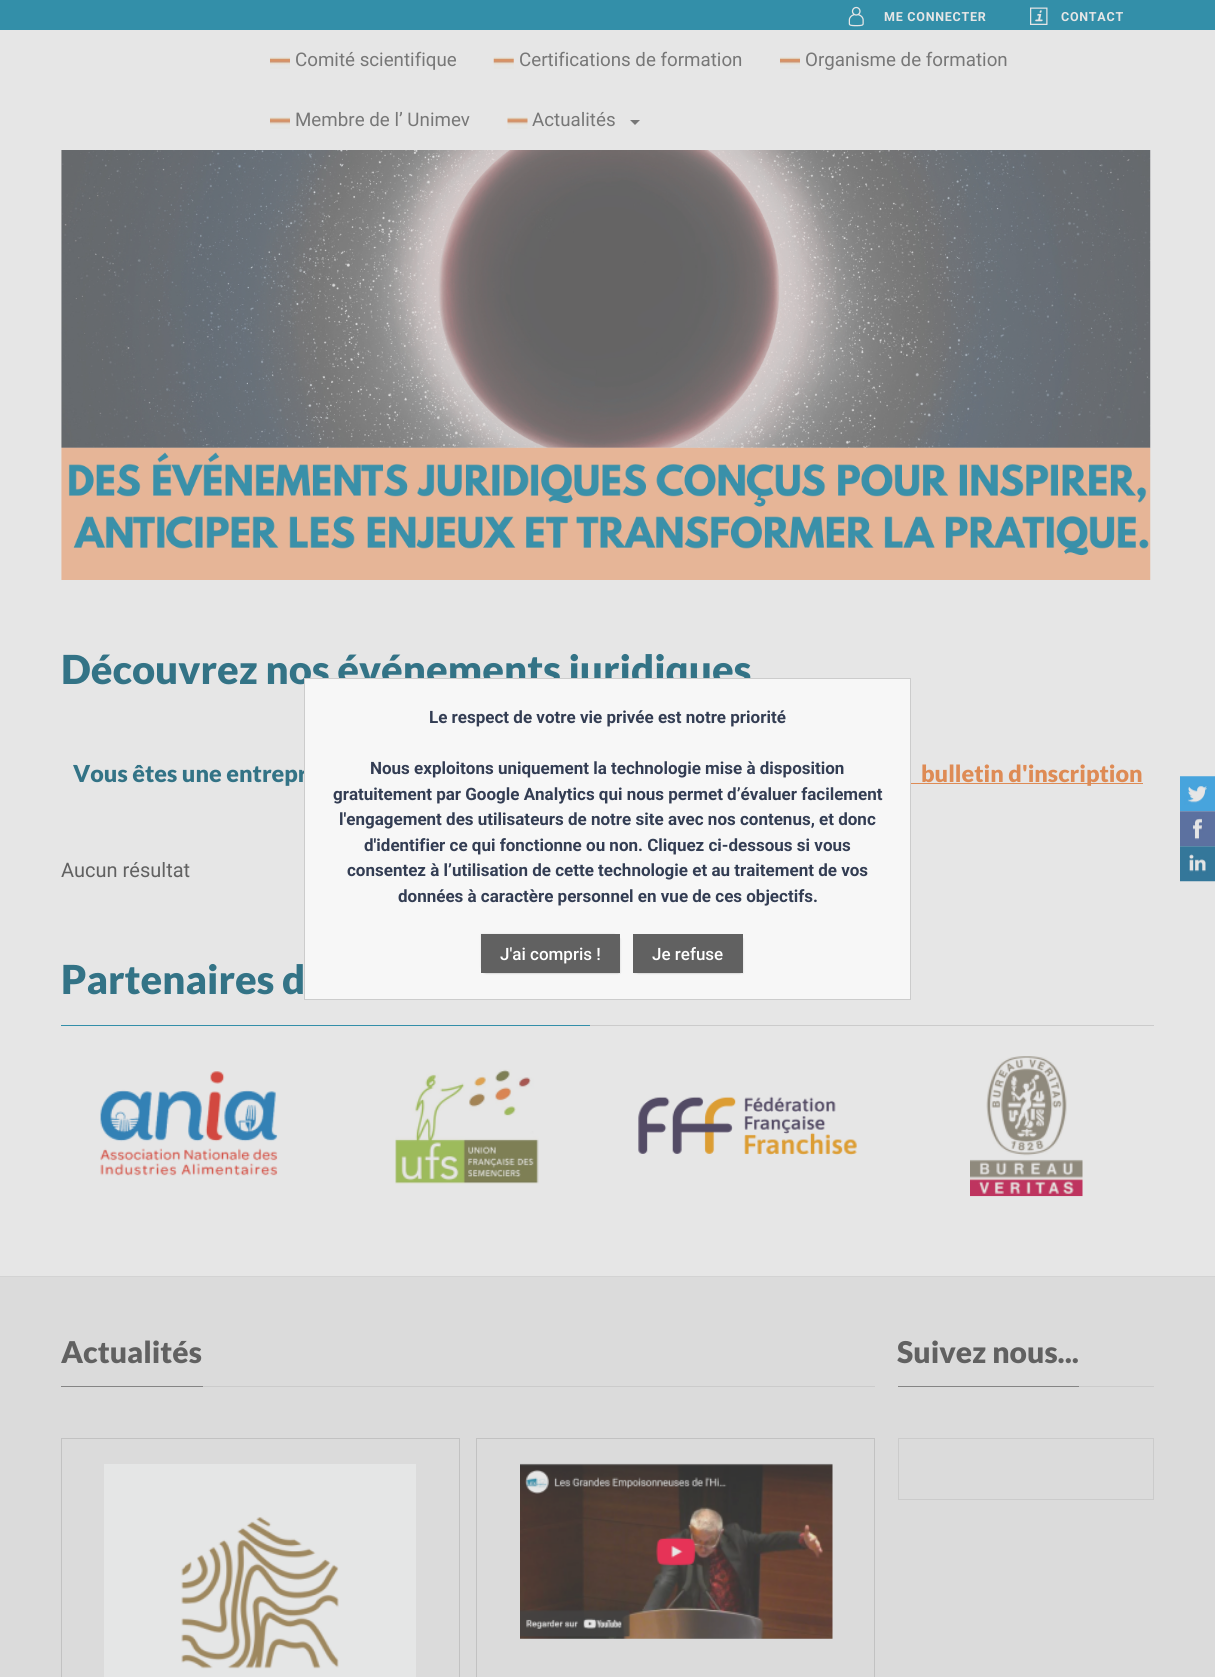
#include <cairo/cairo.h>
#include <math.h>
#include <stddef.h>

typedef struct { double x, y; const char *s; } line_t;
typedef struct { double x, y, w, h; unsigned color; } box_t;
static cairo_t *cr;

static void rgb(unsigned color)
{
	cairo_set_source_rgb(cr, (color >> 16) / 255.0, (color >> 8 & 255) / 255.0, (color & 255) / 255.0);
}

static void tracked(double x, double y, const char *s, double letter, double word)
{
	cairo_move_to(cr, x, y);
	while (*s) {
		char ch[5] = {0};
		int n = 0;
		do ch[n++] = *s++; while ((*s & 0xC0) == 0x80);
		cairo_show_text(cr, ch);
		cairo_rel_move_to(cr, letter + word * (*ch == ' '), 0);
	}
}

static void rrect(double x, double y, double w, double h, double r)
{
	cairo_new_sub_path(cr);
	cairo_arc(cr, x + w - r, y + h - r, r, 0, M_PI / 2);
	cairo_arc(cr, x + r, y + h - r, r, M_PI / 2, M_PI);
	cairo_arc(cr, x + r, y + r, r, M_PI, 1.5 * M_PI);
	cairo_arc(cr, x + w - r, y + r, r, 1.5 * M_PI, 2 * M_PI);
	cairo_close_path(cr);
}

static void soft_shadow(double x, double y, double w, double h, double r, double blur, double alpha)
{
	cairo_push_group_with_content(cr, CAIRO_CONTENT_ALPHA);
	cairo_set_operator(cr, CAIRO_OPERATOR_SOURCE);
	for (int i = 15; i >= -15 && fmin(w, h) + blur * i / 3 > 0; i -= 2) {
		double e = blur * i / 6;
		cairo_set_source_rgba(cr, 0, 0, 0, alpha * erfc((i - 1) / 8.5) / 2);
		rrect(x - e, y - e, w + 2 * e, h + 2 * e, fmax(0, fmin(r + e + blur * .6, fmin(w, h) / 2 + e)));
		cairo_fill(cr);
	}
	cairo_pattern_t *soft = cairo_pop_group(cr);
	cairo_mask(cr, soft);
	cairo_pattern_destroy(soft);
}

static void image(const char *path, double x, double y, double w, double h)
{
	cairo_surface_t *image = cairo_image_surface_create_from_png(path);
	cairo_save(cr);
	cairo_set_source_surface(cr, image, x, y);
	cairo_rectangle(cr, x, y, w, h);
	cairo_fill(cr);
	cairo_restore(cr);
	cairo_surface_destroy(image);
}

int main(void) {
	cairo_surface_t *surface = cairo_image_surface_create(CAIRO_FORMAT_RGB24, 1215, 1677);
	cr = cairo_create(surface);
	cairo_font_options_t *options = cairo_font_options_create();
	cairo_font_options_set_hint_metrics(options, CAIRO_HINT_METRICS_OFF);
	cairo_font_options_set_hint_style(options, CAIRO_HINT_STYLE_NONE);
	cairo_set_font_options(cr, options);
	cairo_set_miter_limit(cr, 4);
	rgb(0xe6e6e6);
	cairo_paint(cr);
	rgb(0x338fa9);
	cairo_rectangle(cr, 0, 0, 1215, 30);
	cairo_fill(cr);
	image("img/1.png", 848, 6, 16, 21);
	image("img/2.png", 1030, 7, 18, 18);
	image("img/3.png", 270, 57, 20, 12);
	image("img/4.png", 493, 57, 21, 12);
	image("img/3.png", 780, 57, 20, 12);
	image("img/5.png", 270, 117, 20, 12);
	image("img/6.png", 507, 117, 21, 12);
	rgb(0x777777);
	cairo_new_path(cr);
	cairo_move_to(cr, 630, 120);
	cairo_line_to(cr, 640, 120);
	cairo_line_to(cr, 635, 125);
	cairo_close_path(cr);
	cairo_fill(cr);
	image("img/7.png", 61, 150, 1090, 430);
	{
		static const box_t items[] = {
			{911, 783, 232, 1, 0xde8b55},
			{590, 1025, 564, 1, 0xcbcbcb},
			{61, 1025, 529, 1, 0x338fa9},
		};
		for (size_t i = 0; i < sizeof items / sizeof *items; i++) {
			rgb(items[i].color);
			cairo_rectangle(cr, items[i].x, items[i].y, items[i].w, items[i].h);
			cairo_fill(cr);
		}
	}
	image("img/8.png", 100, 1071, 178, 105);
	image("img/9.png", 395, 1069, 144, 115);
	image("img/10.png", 638, 1096, 219, 59);
	image("img/11.png", 970, 1056, 113, 141);
	image("img/12.png", 1180, 776, 35, 36);
	image("img/13.png", 1180, 811, 35, 36);
	image("img/14.png", 1180, 846, 35, 36);
	{
		static const box_t items[] = {
			{0, 1277, 1215, 400, 0xdbdbdb},
			{0, 1276, 1215, 1, 0xd3d3d3},
			{203, 1386, 672, 1, 0xcbcbcb},
			{61, 1386, 142, 1, 0x858585},
			{1079, 1386, 75, 1, 0xcbcbcb},
			{898, 1386, 181, 1, 0x858585},
		};
		for (size_t i = 0; i < sizeof items / sizeof *items; i++) {
			rgb(items[i].color);
			cairo_rectangle(cr, items[i].x, items[i].y, items[i].w, items[i].h);
			cairo_fill(cr);
		}
	}
	cairo_rectangle(cr, 61.5, 1438.5, 398, 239);
	rgb(0xc2c2c2);
	cairo_set_line_width(cr, 1);
	cairo_stroke(cr);
	image("img/15.png", 104, 1464, 312, 213);
	cairo_rectangle(cr, 476.5, 1438.5, 398, 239);
	cairo_stroke(cr);
	image("img/16.png", 520, 1463, 313, 176);
	cairo_rectangle(cr, 898.5, 1438.5, 255, 61);
	rgb(0xcbcbcb);
	cairo_stroke(cr);
	cairo_select_font_face(cr, "Roboto", CAIRO_FONT_SLANT_NORMAL, CAIRO_FONT_WEIGHT_BOLD);
	cairo_set_font_size(cr, 12.5);
	rgb(0xe6e6e6);
	tracked(884, 21, "ME CONNECTER", 0.75, 0);
	tracked(1061, 21, "CONTACT", 0.75, 0);
	cairo_select_font_face(cr, "Roboto", CAIRO_FONT_SLANT_NORMAL, CAIRO_FONT_WEIGHT_NORMAL);
	cairo_set_font_size(cr, 18.75);
	rgb(0x777777);
	{
		static const line_t items[] = {
			{295, 66, "Comité scientifique"},
			{519, 66, "Certifications de formation"},
			{805, 66, "Organisme de formation"},
			{295, 126, "Membre de l’ Unimev"},
			{532, 126, "Actualités"},
		};
		for (size_t i = 0; i < sizeof items / sizeof *items; i++) {
			cairo_move_to(cr, items[i].x, items[i].y);
			cairo_show_text(cr, items[i].s);
		}
	}
	cairo_select_font_face(cr, "Lato Black", CAIRO_FONT_SLANT_NORMAL, CAIRO_FONT_WEIGHT_NORMAL);
	cairo_set_font_size(cr, 40);
	rgb(0x337386);
	cairo_move_to(cr, 61, 684);
	cairo_show_text(cr, "Découvrez nos événements juridiques");
	cairo_set_font_size(cr, 23.4);
	cairo_move_to(cr, 73, 782);
	cairo_show_text(cr, "Vous êtes une entrepr");
	rgb(0xde8b55);
	cairo_move_to(cr, 921, 782);
	cairo_show_text(cr, "bulletin d'inscription");
	cairo_select_font_face(cr, "Roboto", CAIRO_FONT_SLANT_NORMAL, CAIRO_FONT_WEIGHT_NORMAL);
	cairo_set_font_size(cr, 20);
	rgb(0x616161);
	cairo_move_to(cr, 61, 877);
	cairo_show_text(cr, "Aucun résultat");
	cairo_select_font_face(cr, "Lato Black", CAIRO_FONT_SLANT_NORMAL, CAIRO_FONT_WEIGHT_NORMAL);
	cairo_set_font_size(cr, 40);
	rgb(0x337386);
	cairo_move_to(cr, 61, 994);
	cairo_show_text(cr, "Partenaires d");
	cairo_set_font_size(cr, 30);
	rgb(0x616161);
	cairo_move_to(cr, 61, 1363);
	cairo_show_text(cr, "Actualités");
	cairo_move_to(cr, 897, 1363);
	cairo_show_text(cr, "Suivez nous...");
	rgb(0xf7f7f7);
	cairo_rectangle(cr, 304.5, 678.5, 606, 321);
	cairo_fill_preserve(cr);
	rgb(0xcccccc);
	cairo_stroke(cr);
	cairo_select_font_face(cr, "Roboto", CAIRO_FONT_SLANT_NORMAL, CAIRO_FONT_WEIGHT_BOLD);
	cairo_set_font_size(cr, 17);
	rgb(0x333d53);
	{
		static const line_t items[] = {
			{429, 723, "Le respect de votre vie privée est notre priorité"},
			{370, 774, "Nous exploitons uniquement la technologie mise à disposition"},
			{333, 800, "gratuitement par Google Analytics qui nous permet d’évaluer facilement"},
			{339, 825, "l'engagement des utilisateurs de notre site avec nos contenus, et donc"},
			{364, 851, "d'identifier ce qui fonctionne ou non. Cliquez ci-dessous si vous"},
			{347, 876, "consentez à l’utilisation de cette technologie et au traitement de vos"},
			{398, 902, "données à caractère personnel en vue de ces objectifs."},
		};
		for (size_t i = 0; i < sizeof items / sizeof *items; i++) {
			cairo_move_to(cr, items[i].x, items[i].y);
			cairo_show_text(cr, items[i].s);
		}
	}
	rgb(0x000000);
	soft_shadow(481, 934, 134, 34, 0, 1, 0.08);
	soft_shadow(486, 939, 134, 34, 0, 1, 0.15);
	soft_shadow(484, 939, 134, 34, 0, 1, 0.15);
	rgb(0x616161);
	cairo_rectangle(cr, 481, 934, 139, 39);
	cairo_fill(cr);
	cairo_select_font_face(cr, "Roboto Medium", CAIRO_FONT_SLANT_NORMAL, CAIRO_FONT_WEIGHT_NORMAL);
	rgb(0xffffff);
	cairo_move_to(cr, 500, 960);
	cairo_show_text(cr, "J'ai compris !");
	rgb(0x000000);
	soft_shadow(638, 939, 105, 34, 0, 1, 0.15);
	soft_shadow(635, 939, 105, 34, 0, 1, 0.15);
	rgb(0x616161);
	cairo_rectangle(cr, 633, 934, 110, 39);
	cairo_fill(cr);
	rgb(0xffffff);
	cairo_move_to(cr, 652, 960);
	cairo_show_text(cr, "Je refuse");
	cairo_surface_write_to_png(surface, "page.png");
	cairo_font_options_destroy(options);
	cairo_destroy(cr);
	cairo_surface_destroy(surface);
	return 0;
}
